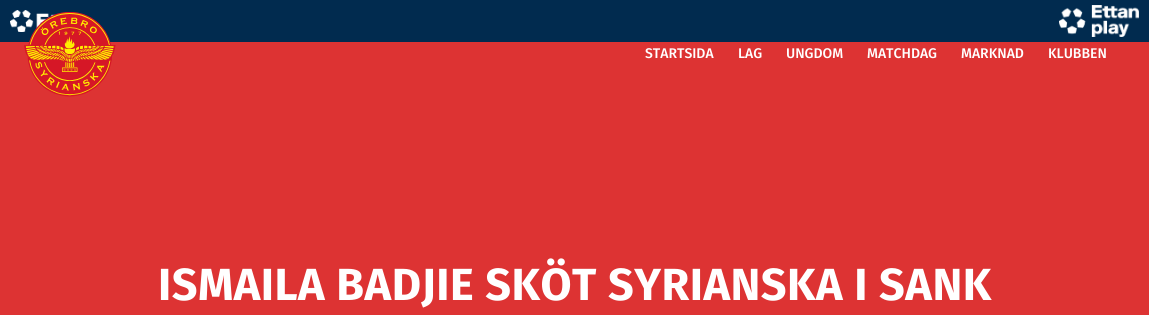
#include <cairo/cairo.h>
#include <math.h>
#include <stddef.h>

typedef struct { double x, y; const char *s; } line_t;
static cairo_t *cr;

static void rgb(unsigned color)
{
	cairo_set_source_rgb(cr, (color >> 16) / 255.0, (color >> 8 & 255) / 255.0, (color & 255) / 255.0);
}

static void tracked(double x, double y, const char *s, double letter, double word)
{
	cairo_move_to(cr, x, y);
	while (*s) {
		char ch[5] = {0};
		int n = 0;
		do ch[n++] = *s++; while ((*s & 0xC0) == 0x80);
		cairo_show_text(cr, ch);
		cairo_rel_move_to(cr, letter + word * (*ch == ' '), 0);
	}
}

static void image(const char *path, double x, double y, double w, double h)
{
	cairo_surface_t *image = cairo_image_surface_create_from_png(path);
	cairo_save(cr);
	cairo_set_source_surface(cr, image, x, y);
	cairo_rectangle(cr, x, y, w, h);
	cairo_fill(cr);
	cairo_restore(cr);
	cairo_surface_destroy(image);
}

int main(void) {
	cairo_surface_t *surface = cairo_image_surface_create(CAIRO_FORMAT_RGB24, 1149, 315);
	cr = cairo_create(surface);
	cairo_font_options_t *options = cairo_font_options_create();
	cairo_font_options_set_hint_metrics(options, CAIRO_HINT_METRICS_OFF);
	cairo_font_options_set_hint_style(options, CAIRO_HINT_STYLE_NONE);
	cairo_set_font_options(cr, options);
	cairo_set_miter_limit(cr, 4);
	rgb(0xdd3333);
	cairo_paint(cr);
	image("img/1.png", 0, 0, 1149, 42);
	image("img/2.png", 24, 12, 92, 85);
	cairo_select_font_face(cr, "Fira Sans Medium", CAIRO_FONT_SLANT_NORMAL, CAIRO_FONT_WEIGHT_NORMAL);
	cairo_set_font_size(cr, 14);
	rgb(0xffffff);
	{
		static const line_t items[] = {
			{645, 58, "STARTSIDA"},
			{738, 58, "LAG"},
			{786, 58, "UNGDOM"},
			{867, 58, "MATCHDAG"},
			{961, 58, "MARKNAD"},
			{1048, 58, "KLUBBEN"},
		};
		for (size_t i = 0; i < sizeof items / sizeof *items; i++) {
			cairo_move_to(cr, items[i].x, items[i].y);
			cairo_show_text(cr, items[i].s);
		}
	}
	cairo_select_font_face(cr, "Fira Sans", CAIRO_FONT_SLANT_NORMAL, CAIRO_FONT_WEIGHT_BOLD);
	cairo_set_font_size(cr, 45);
	tracked(158, 300, "ISMAILA BADJIE SKÖT SYRIANSKA I SANK", 0.5, 0);
	cairo_surface_write_to_png(surface, "page.png");
	cairo_font_options_destroy(options);
	cairo_destroy(cr);
	cairo_surface_destroy(surface);
	return 0;
}
